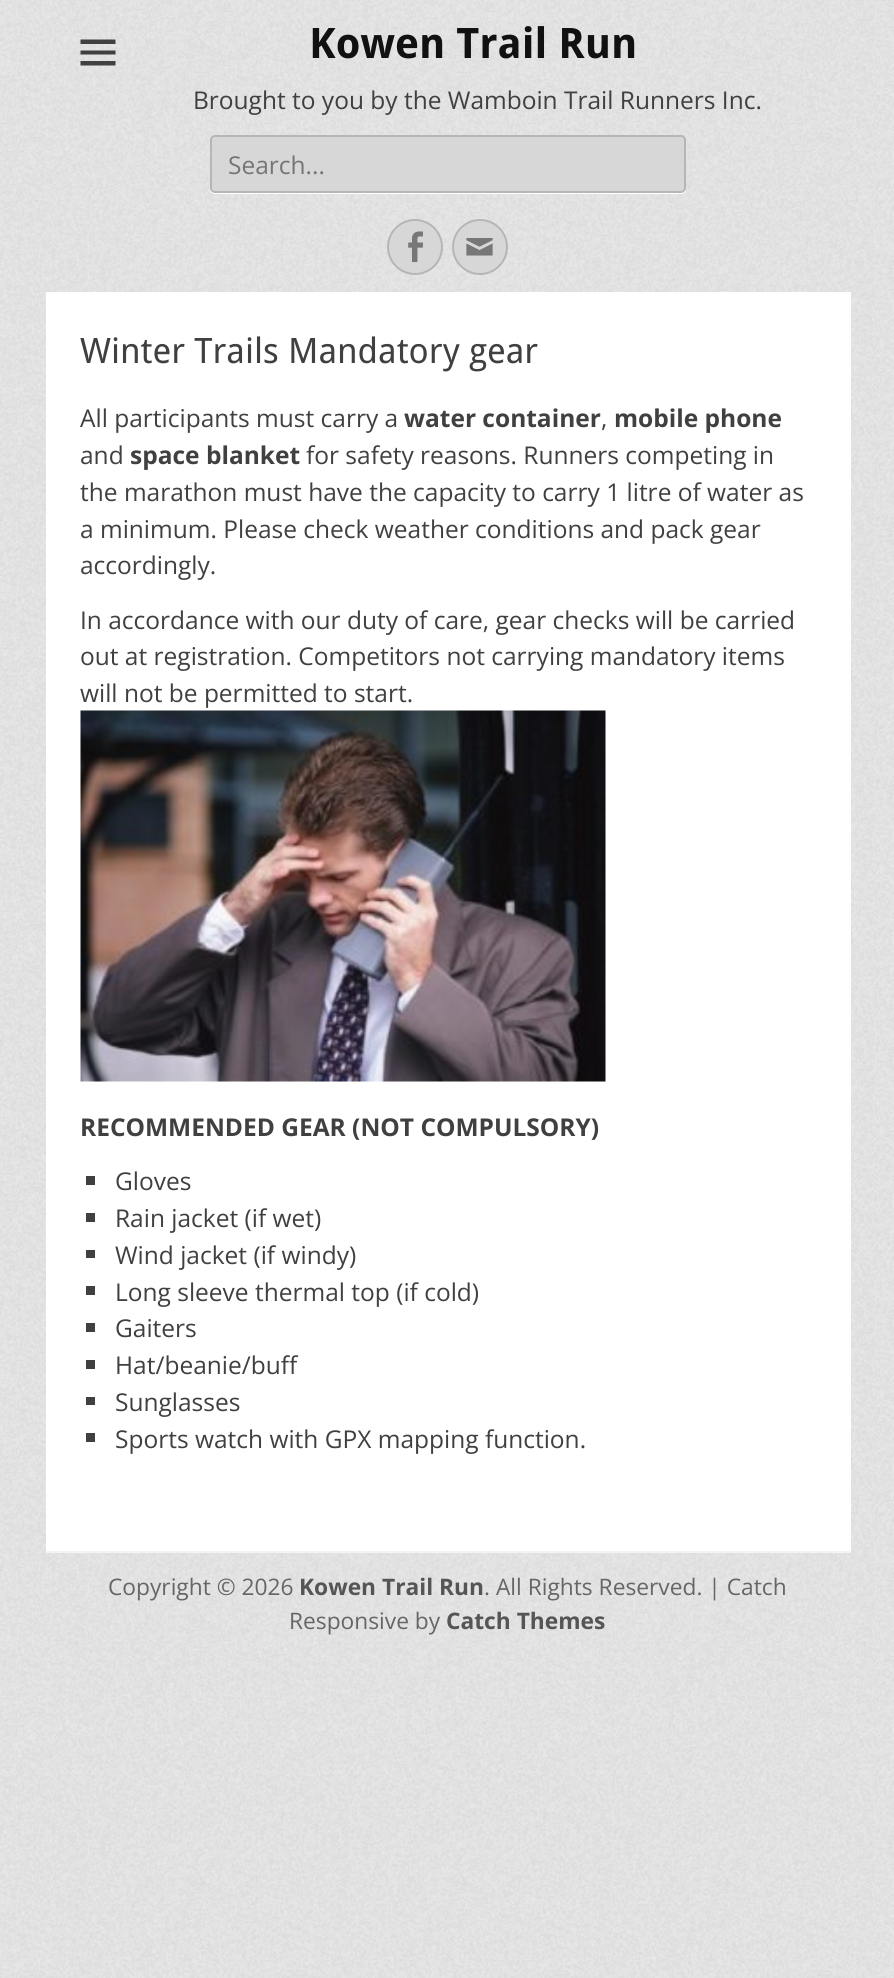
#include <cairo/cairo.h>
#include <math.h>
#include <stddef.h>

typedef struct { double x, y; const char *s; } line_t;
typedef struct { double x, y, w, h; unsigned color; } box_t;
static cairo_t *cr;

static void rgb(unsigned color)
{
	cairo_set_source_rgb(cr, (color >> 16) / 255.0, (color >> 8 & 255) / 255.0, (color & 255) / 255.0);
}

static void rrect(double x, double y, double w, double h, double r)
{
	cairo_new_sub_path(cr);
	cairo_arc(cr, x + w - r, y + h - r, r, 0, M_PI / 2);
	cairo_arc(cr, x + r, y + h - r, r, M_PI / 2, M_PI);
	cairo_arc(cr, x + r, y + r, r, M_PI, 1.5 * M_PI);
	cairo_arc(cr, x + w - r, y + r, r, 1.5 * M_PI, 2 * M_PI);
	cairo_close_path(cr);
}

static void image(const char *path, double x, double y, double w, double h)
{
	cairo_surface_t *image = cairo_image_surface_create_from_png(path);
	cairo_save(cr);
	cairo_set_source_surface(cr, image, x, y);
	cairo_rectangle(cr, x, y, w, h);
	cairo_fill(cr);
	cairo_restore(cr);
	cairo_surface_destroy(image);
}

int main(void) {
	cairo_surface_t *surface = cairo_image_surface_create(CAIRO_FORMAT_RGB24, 894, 1978);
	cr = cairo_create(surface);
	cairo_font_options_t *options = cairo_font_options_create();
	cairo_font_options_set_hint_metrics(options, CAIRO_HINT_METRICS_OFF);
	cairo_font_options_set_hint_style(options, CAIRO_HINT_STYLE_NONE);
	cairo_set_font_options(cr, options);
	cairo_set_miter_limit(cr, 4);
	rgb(0xffffff);
	cairo_paint(cr);
	image("img/1.png", 0, 0, 894, 1978);
	rgb(0x404040);
	cairo_new_path(cr);
	cairo_move_to(cr, 80.5, 65.5);
	cairo_line_to(cr, 80.5, 61);
	cairo_line_to(cr, 115.5, 61);
	cairo_line_to(cr, 115.5, 65.5);
	cairo_close_path(cr);
	cairo_move_to(cr, 80.5, 39.5);
	cairo_line_to(cr, 115.5, 39.5);
	cairo_line_to(cr, 115.5, 44);
	cairo_line_to(cr, 80.5, 44);
	cairo_close_path(cr);
	cairo_move_to(cr, 80.5, 54.5);
	cairo_line_to(cr, 80.5, 50.5);
	cairo_line_to(cr, 115.5, 50.5);
	cairo_line_to(cr, 115.5, 54.5);
	cairo_close_path(cr);
	cairo_fill(cr);
	rgb(0xffffff);
	cairo_new_path(cr);
	cairo_move_to(cr, 210, 187);
	cairo_line_to(cr, 210, 189);
	cairo_curve_to(cr, 210, 192, 212, 194, 215, 194);
	cairo_line_to(cr, 681, 194);
	cairo_curve_to(cr, 684, 194, 686, 192, 686, 189);
	cairo_line_to(cr, 686, 187);
	cairo_curve_to(cr, 686, 190, 684, 192, 681, 192);
	cairo_line_to(cr, 215, 192);
	cairo_curve_to(cr, 212, 192, 210, 190, 210, 187);
	cairo_close_path(cr);
	cairo_fill(cr);
	rgb(0xd7d7d7);
	rrect(211, 136, 474, 56, 4);
	cairo_fill_preserve(cr);
	rgb(0xb6b6b6);
	cairo_stroke(cr);
	rgb(0xd7d7d7);
	cairo_arc(cr, 415, 247, 27, 0, 2 * M_PI);
	cairo_fill_preserve(cr);
	rgb(0xb6b6b6);
	cairo_stroke(cr);
	image("img/2.png", 408, 231, 15, 32);
	rgb(0xd7d7d7);
	cairo_arc(cr, 480, 247, 27, 0, 2 * M_PI);
	cairo_fill_preserve(cr);
	rgb(0xb6b6b6);
	cairo_stroke(cr);
	image("img/3.png", 466, 238, 27, 18);
	rgb(0xffffff);
	cairo_rectangle(cr, 46, 292, 805, 1259);
	cairo_fill(cr);
	image("img/4.png", 80, 710, 526, 372);
	{
		static const box_t items[] = {
			{86, 1176, 9, 9, 0x404040},
			{86, 1213, 9, 9, 0x404040},
			{86, 1250, 9, 8, 0x404040},
			{86, 1286, 9, 9, 0x404040},
			{86, 1323, 9, 9, 0x404040},
			{86, 1360, 9, 9, 0x404040},
			{86, 1397, 9, 8, 0x404040},
			{86, 1433, 9, 9, 0x404040},
			{46, 1551, 805, 2, 0xf4f4f4},
		};
		for (size_t i = 0; i < sizeof items / sizeof *items; i++) {
			rgb(items[i].color);
			cairo_rectangle(cr, items[i].x, items[i].y, items[i].w, items[i].h);
			cairo_fill(cr);
		}
	}
	cairo_select_font_face(cr, "Droid Sans", CAIRO_FONT_SLANT_NORMAL, CAIRO_FONT_WEIGHT_BOLD);
	cairo_set_font_size(cr, 42);
	rgb(0x111111);
	cairo_move_to(cr, 309, 58);
	cairo_show_text(cr, "Kowen Trail Run");
	cairo_select_font_face(cr, "Open Sans", CAIRO_FONT_SLANT_NORMAL, CAIRO_FONT_WEIGHT_NORMAL);
	cairo_set_font_size(cr, 24.5);
	rgb(0x404040);
	cairo_move_to(cr, 193, 109);
	cairo_show_text(cr, "Brought to you by the Wamboin Trail Runners Inc.");
	rgb(0x757575);
	cairo_move_to(cr, 228, 174);
	cairo_show_text(cr, "Search...");
	cairo_select_font_face(cr, "Droid Sans", CAIRO_FONT_SLANT_NORMAL, CAIRO_FONT_WEIGHT_NORMAL);
	cairo_set_font_size(cr, 35);
	rgb(0x404040);
	cairo_move_to(cr, 80, 363);
	cairo_show_text(cr, "Winter Trails Mandatory gear");
	cairo_select_font_face(cr, "Open Sans", CAIRO_FONT_SLANT_NORMAL, CAIRO_FONT_WEIGHT_NORMAL);
	cairo_set_font_size(cr, 24.5);
	cairo_move_to(cr, 80, 427);
	cairo_show_text(cr, "All participants must carry a");
	cairo_select_font_face(cr, "Open Sans", CAIRO_FONT_SLANT_NORMAL, CAIRO_FONT_WEIGHT_BOLD);
	cairo_move_to(cr, 404, 427);
	cairo_show_text(cr, "water container");
	cairo_select_font_face(cr, "Open Sans", CAIRO_FONT_SLANT_NORMAL, CAIRO_FONT_WEIGHT_NORMAL);
	cairo_move_to(cr, 601, 427);
	cairo_show_text(cr, ",");
	cairo_select_font_face(cr, "Open Sans", CAIRO_FONT_SLANT_NORMAL, CAIRO_FONT_WEIGHT_BOLD);
	cairo_move_to(cr, 614, 427);
	cairo_show_text(cr, "mobile phone");
	cairo_select_font_face(cr, "Open Sans", CAIRO_FONT_SLANT_NORMAL, CAIRO_FONT_WEIGHT_NORMAL);
	cairo_move_to(cr, 80, 464);
	cairo_show_text(cr, "and");
	cairo_select_font_face(cr, "Open Sans", CAIRO_FONT_SLANT_NORMAL, CAIRO_FONT_WEIGHT_BOLD);
	cairo_move_to(cr, 130, 464);
	cairo_show_text(cr, "space blanket");
	cairo_select_font_face(cr, "Open Sans", CAIRO_FONT_SLANT_NORMAL, CAIRO_FONT_WEIGHT_NORMAL);
	{
		static const line_t items[] = {
			{306, 464, "for safety reasons. Runners competing in"},
			{80, 501, "the marathon must have the capacity to carry 1 litre of water as"},
			{80, 538, "a minimum. Please check weather conditions and pack gear"},
			{80, 574, "accordingly."},
			{80, 629, "In accordance with our duty of care, gear checks will be carried"},
			{80, 665, "out at registration. Competitors not carrying mandatory items"},
			{80, 702, "will not be permitted to start."},
		};
		for (size_t i = 0; i < sizeof items / sizeof *items; i++) {
			cairo_move_to(cr, items[i].x, items[i].y);
			cairo_show_text(cr, items[i].s);
		}
	}
	cairo_select_font_face(cr, "Open Sans", CAIRO_FONT_SLANT_NORMAL, CAIRO_FONT_WEIGHT_BOLD);
	cairo_move_to(cr, 80, 1136);
	cairo_show_text(cr, "RECOMMENDED GEAR (NOT COMPULSORY)");
	cairo_select_font_face(cr, "Open Sans", CAIRO_FONT_SLANT_NORMAL, CAIRO_FONT_WEIGHT_NORMAL);
	{
		static const line_t items[] = {
			{115, 1190, "Gloves"},
			{115, 1227, "Rain jacket (if wet)"},
			{115, 1264, "Wind jacket (if windy)"},
			{115, 1301, "Long sleeve thermal top (if cold)"},
			{115, 1337, "Gaiters"},
			{115, 1374, "Hat/beanie/buff"},
			{115, 1411, "Sunglasses"},
			{115, 1448, "Sports watch with GPX mapping function."},
		};
		for (size_t i = 0; i < sizeof items / sizeof *items; i++) {
			cairo_move_to(cr, items[i].x, items[i].y);
			cairo_show_text(cr, items[i].s);
		}
	}
	cairo_set_font_size(cr, 22.75);
	rgb(0x666666);
	cairo_move_to(cr, 108, 1595);
	cairo_show_text(cr, "Copyright © 2026");
	cairo_select_font_face(cr, "Open Sans", CAIRO_FONT_SLANT_NORMAL, CAIRO_FONT_WEIGHT_BOLD);
	rgb(0x555555);
	cairo_move_to(cr, 299, 1595);
	cairo_show_text(cr, "Kowen Trail Run");
	cairo_select_font_face(cr, "Open Sans", CAIRO_FONT_SLANT_NORMAL, CAIRO_FONT_WEIGHT_NORMAL);
	rgb(0x666666);
	cairo_move_to(cr, 484, 1595);
	cairo_show_text(cr, ". All Rights Reserved. | Catch");
	cairo_move_to(cr, 289, 1629);
	cairo_show_text(cr, "Responsive by");
	cairo_select_font_face(cr, "Open Sans", CAIRO_FONT_SLANT_NORMAL, CAIRO_FONT_WEIGHT_BOLD);
	rgb(0x555555);
	cairo_move_to(cr, 446, 1629);
	cairo_show_text(cr, "Catch Themes");
	cairo_surface_write_to_png(surface, "page.png");
	cairo_font_options_destroy(options);
	cairo_destroy(cr);
	cairo_surface_destroy(surface);
	return 0;
}
